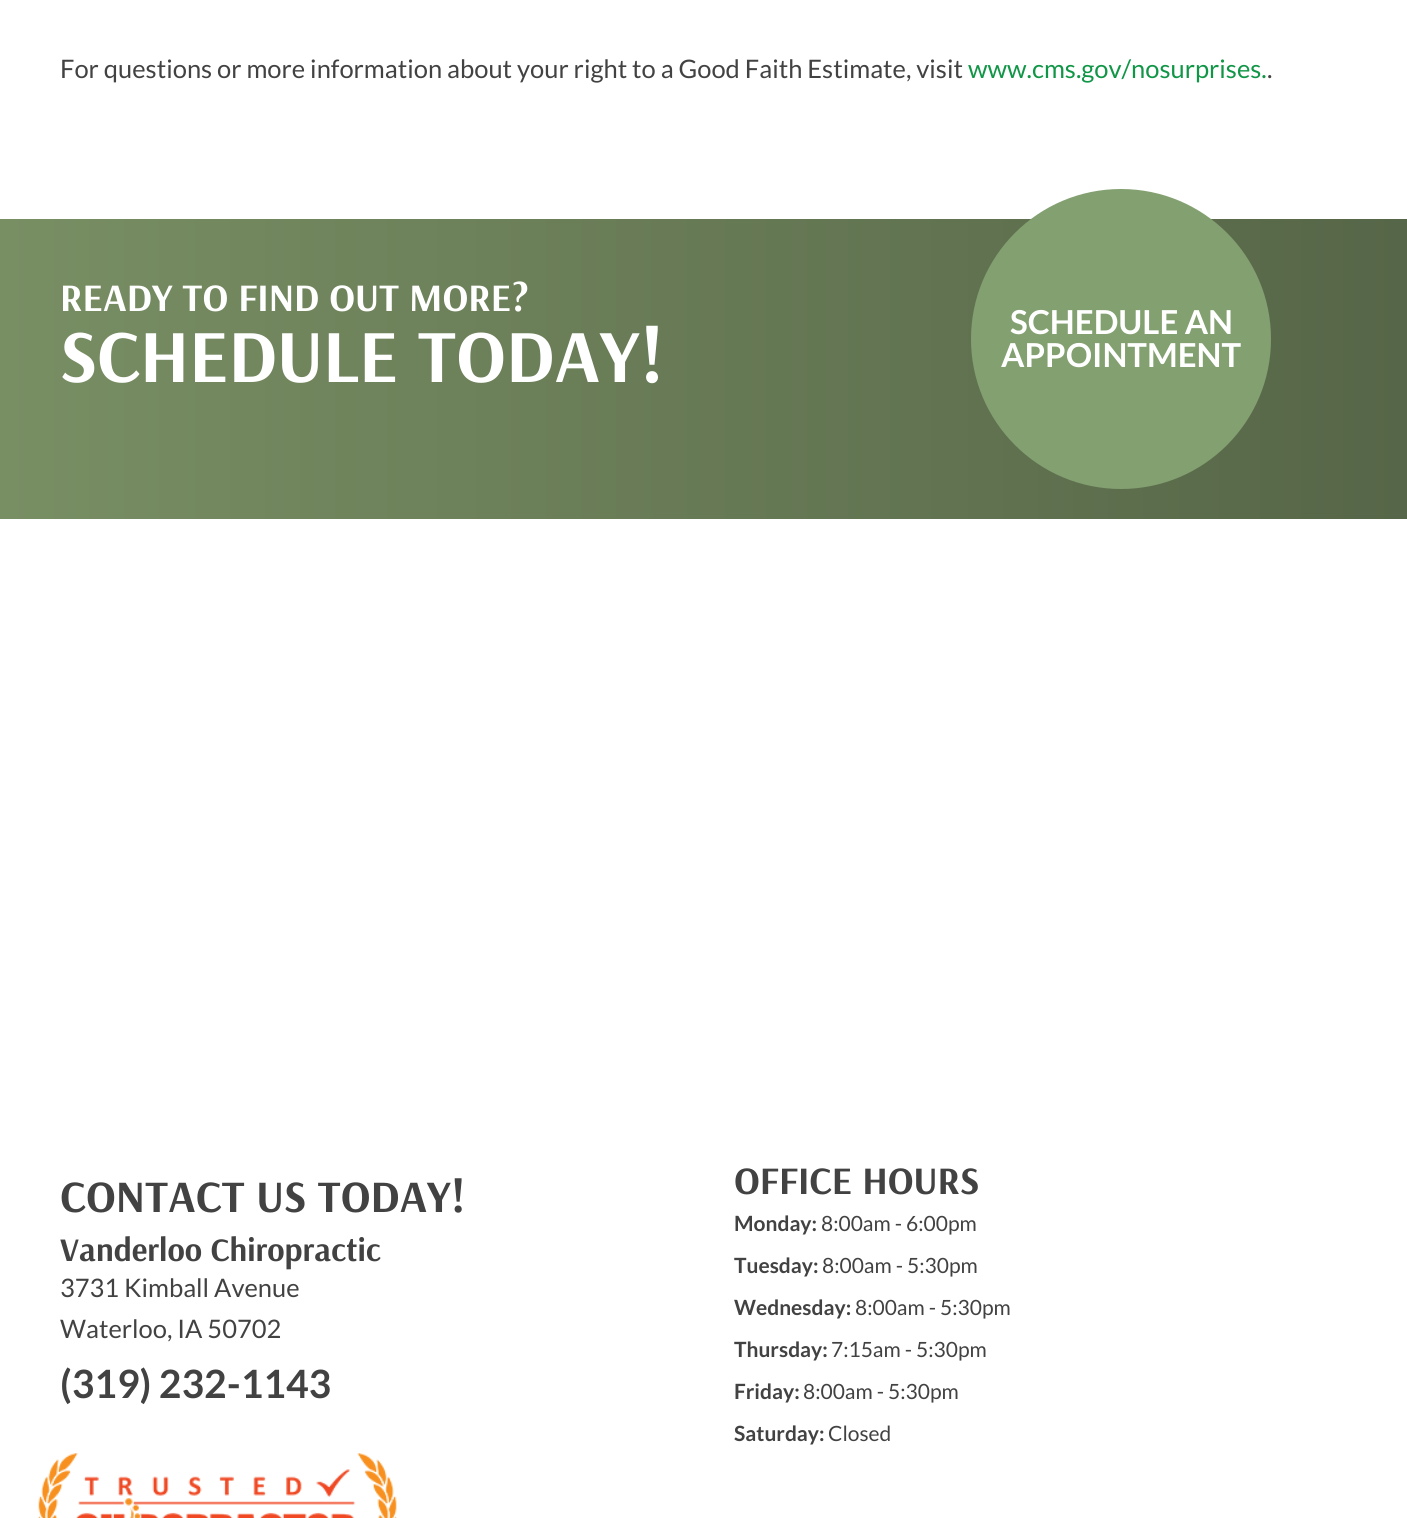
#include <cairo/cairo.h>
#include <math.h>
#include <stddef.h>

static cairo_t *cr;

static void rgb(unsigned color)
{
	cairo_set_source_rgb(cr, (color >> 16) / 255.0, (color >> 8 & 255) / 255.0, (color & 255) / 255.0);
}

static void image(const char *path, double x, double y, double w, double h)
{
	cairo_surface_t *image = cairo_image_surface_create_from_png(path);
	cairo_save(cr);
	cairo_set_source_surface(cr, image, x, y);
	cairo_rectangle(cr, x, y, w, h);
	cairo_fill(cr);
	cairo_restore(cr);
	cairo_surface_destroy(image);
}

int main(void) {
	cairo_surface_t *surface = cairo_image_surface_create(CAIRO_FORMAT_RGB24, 1407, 1518);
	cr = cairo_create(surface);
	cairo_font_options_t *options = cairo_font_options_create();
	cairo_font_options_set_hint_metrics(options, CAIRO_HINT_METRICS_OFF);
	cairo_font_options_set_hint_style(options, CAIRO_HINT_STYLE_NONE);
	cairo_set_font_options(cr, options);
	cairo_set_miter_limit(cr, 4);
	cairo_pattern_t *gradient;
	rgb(0xffffff);
	cairo_paint(cr);
	gradient = cairo_pattern_create_linear(1407, 369, 0, 369);
	cairo_pattern_add_color_stop_rgba(gradient, 0, 0.337, 0.4, 0.282, 1);
	cairo_pattern_add_color_stop_rgba(gradient, 1, 0.471, 0.557, 0.388, 1);
	cairo_set_source(cr, gradient);
	cairo_pattern_destroy(gradient);
	cairo_rectangle(cr, 0, 219, 1407, 300);
	cairo_fill(cr);
	rgb(0x83a070);
	cairo_arc(cr, 1121, 339, 149, 0, 2 * M_PI);
	cairo_fill_preserve(cr);
	cairo_stroke(cr);
	image("img/1.png", 38, 1453, 359, 65);
	cairo_select_font_face(cr, "Lato", CAIRO_FONT_SLANT_NORMAL, CAIRO_FONT_WEIGHT_NORMAL);
	cairo_set_font_size(cr, 25.5);
	rgb(0x424242);
	cairo_move_to(cr, 60, 78);
	cairo_show_text(cr, "For questions or more information about your right to a Good Faith Estimate, visit");
	rgb(0x119647);
	cairo_move_to(cr, 968, 78);
	cairo_show_text(cr, "www.cms.gov/nosurprises.");
	rgb(0x424242);
	cairo_move_to(cr, 1267, 78);
	cairo_show_text(cr, ".");
	cairo_select_font_face(cr, "Arsenal", CAIRO_FONT_SLANT_NORMAL, CAIRO_FONT_WEIGHT_BOLD);
	cairo_set_font_size(cr, 39);
	rgb(0xffffff);
	cairo_move_to(cr, 60, 311);
	cairo_show_text(cr, "READY TO FIND OUT MORE?");
	cairo_set_font_size(cr, 75);
	cairo_move_to(cr, 60, 382);
	cairo_show_text(cr, "SCHEDULE TODAY!");
	cairo_select_font_face(cr, "Lato", CAIRO_FONT_SLANT_NORMAL, CAIRO_FONT_WEIGHT_BOLD);
	cairo_set_font_size(cr, 33);
	cairo_move_to(cr, 1010, 334);
	cairo_show_text(cr, "SCHEDULE AN");
	cairo_move_to(cr, 1001, 367);
	cairo_show_text(cr, "APPOINTMENT");
	cairo_select_font_face(cr, "Arsenal", CAIRO_FONT_SLANT_NORMAL, CAIRO_FONT_WEIGHT_BOLD);
	cairo_set_font_size(cr, 45);
	rgb(0x424242);
	cairo_move_to(cr, 60, 1212);
	cairo_show_text(cr, "CONTACT US TODAY!");
	cairo_set_font_size(cr, 33);
	cairo_move_to(cr, 60, 1261);
	cairo_show_text(cr, "Vanderloo Chiropractic");
	cairo_select_font_face(cr, "Lato", CAIRO_FONT_SLANT_NORMAL, CAIRO_FONT_WEIGHT_NORMAL);
	cairo_set_font_size(cr, 25.5);
	cairo_move_to(cr, 60, 1297);
	cairo_show_text(cr, "3731 Kimball Avenue");
	cairo_move_to(cr, 60, 1338);
	cairo_show_text(cr, "Waterloo, IA 50702");
	cairo_select_font_face(cr, "Lato", CAIRO_FONT_SLANT_NORMAL, CAIRO_FONT_WEIGHT_BOLD);
	cairo_set_font_size(cr, 39);
	cairo_move_to(cr, 60, 1398);
	cairo_show_text(cr, "(319) 232-1143");
	cairo_select_font_face(cr, "Arsenal", CAIRO_FONT_SLANT_NORMAL, CAIRO_FONT_WEIGHT_BOLD);
	cairo_move_to(cr, 734, 1194);
	cairo_show_text(cr, "OFFICE HOURS");
	cairo_select_font_face(cr, "Lato", CAIRO_FONT_SLANT_NORMAL, CAIRO_FONT_WEIGHT_BOLD);
	cairo_set_font_size(cr, 21);
	cairo_move_to(cr, 734, 1231);
	cairo_show_text(cr, "Monday:");
	cairo_select_font_face(cr, "Lato", CAIRO_FONT_SLANT_NORMAL, CAIRO_FONT_WEIGHT_NORMAL);
	cairo_move_to(cr, 821, 1231);
	cairo_show_text(cr, "8:00am - 6:00pm");
	cairo_select_font_face(cr, "Lato", CAIRO_FONT_SLANT_NORMAL, CAIRO_FONT_WEIGHT_BOLD);
	cairo_move_to(cr, 734, 1273);
	cairo_show_text(cr, "Tuesday:");
	cairo_select_font_face(cr, "Lato", CAIRO_FONT_SLANT_NORMAL, CAIRO_FONT_WEIGHT_NORMAL);
	cairo_move_to(cr, 822, 1273);
	cairo_show_text(cr, "8:00am - 5:30pm");
	cairo_select_font_face(cr, "Lato", CAIRO_FONT_SLANT_NORMAL, CAIRO_FONT_WEIGHT_BOLD);
	cairo_move_to(cr, 734, 1315);
	cairo_show_text(cr, "Wednesday:");
	cairo_select_font_face(cr, "Lato", CAIRO_FONT_SLANT_NORMAL, CAIRO_FONT_WEIGHT_NORMAL);
	cairo_move_to(cr, 855, 1315);
	cairo_show_text(cr, "8:00am - 5:30pm");
	cairo_select_font_face(cr, "Lato", CAIRO_FONT_SLANT_NORMAL, CAIRO_FONT_WEIGHT_BOLD);
	cairo_move_to(cr, 734, 1357);
	cairo_show_text(cr, "Thursday:");
	cairo_select_font_face(cr, "Lato", CAIRO_FONT_SLANT_NORMAL, CAIRO_FONT_WEIGHT_NORMAL);
	cairo_move_to(cr, 831, 1357);
	cairo_show_text(cr, "7:15am - 5:30pm");
	cairo_select_font_face(cr, "Lato", CAIRO_FONT_SLANT_NORMAL, CAIRO_FONT_WEIGHT_BOLD);
	cairo_move_to(cr, 734, 1399);
	cairo_show_text(cr, "Friday:");
	cairo_select_font_face(cr, "Lato", CAIRO_FONT_SLANT_NORMAL, CAIRO_FONT_WEIGHT_NORMAL);
	cairo_move_to(cr, 803, 1399);
	cairo_show_text(cr, "8:00am - 5:30pm");
	cairo_select_font_face(cr, "Lato", CAIRO_FONT_SLANT_NORMAL, CAIRO_FONT_WEIGHT_BOLD);
	cairo_move_to(cr, 734, 1441);
	cairo_show_text(cr, "Saturday:");
	cairo_select_font_face(cr, "Lato", CAIRO_FONT_SLANT_NORMAL, CAIRO_FONT_WEIGHT_NORMAL);
	cairo_move_to(cr, 828, 1441);
	cairo_show_text(cr, "Closed");
	cairo_surface_write_to_png(surface, "page.png");
	cairo_font_options_destroy(options);
	cairo_destroy(cr);
	cairo_surface_destroy(surface);
	return 0;
}
